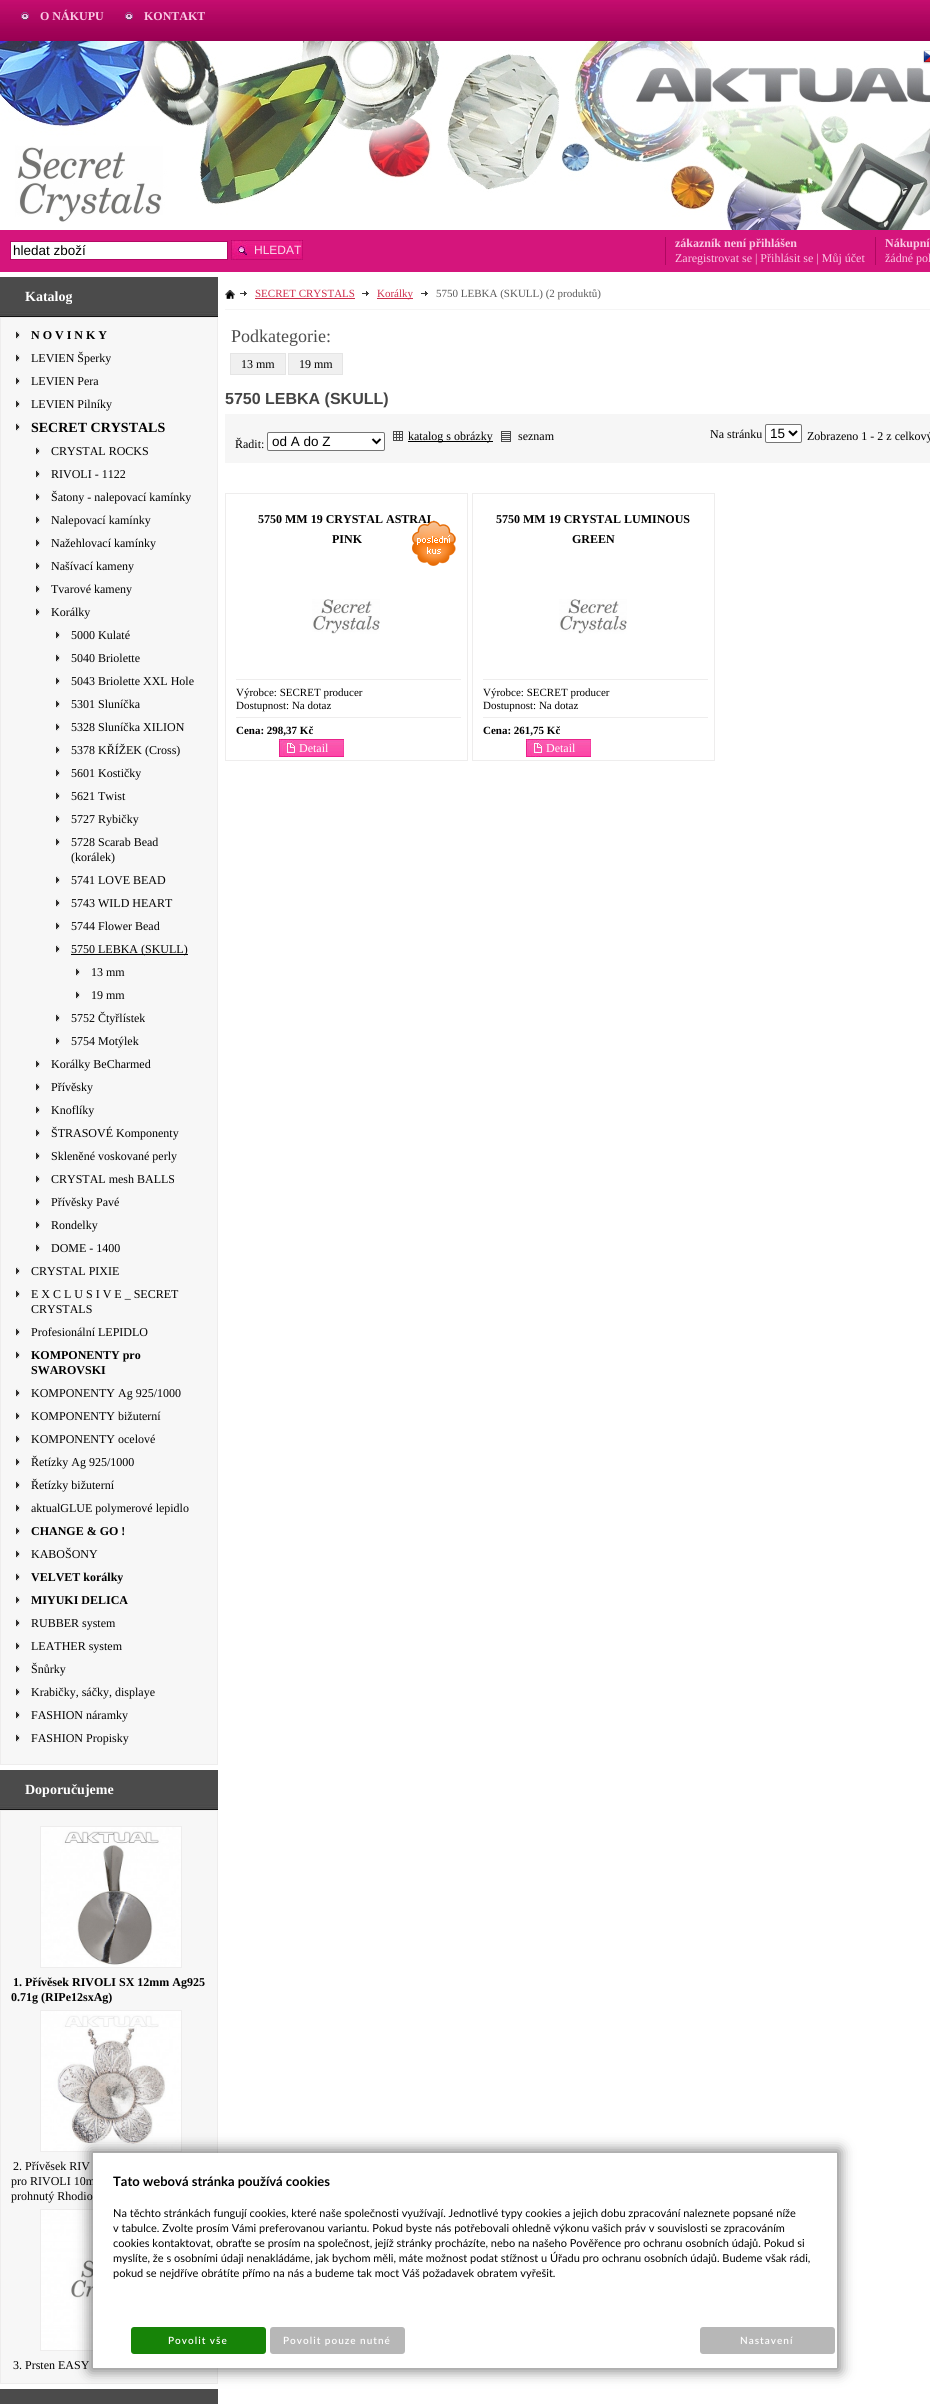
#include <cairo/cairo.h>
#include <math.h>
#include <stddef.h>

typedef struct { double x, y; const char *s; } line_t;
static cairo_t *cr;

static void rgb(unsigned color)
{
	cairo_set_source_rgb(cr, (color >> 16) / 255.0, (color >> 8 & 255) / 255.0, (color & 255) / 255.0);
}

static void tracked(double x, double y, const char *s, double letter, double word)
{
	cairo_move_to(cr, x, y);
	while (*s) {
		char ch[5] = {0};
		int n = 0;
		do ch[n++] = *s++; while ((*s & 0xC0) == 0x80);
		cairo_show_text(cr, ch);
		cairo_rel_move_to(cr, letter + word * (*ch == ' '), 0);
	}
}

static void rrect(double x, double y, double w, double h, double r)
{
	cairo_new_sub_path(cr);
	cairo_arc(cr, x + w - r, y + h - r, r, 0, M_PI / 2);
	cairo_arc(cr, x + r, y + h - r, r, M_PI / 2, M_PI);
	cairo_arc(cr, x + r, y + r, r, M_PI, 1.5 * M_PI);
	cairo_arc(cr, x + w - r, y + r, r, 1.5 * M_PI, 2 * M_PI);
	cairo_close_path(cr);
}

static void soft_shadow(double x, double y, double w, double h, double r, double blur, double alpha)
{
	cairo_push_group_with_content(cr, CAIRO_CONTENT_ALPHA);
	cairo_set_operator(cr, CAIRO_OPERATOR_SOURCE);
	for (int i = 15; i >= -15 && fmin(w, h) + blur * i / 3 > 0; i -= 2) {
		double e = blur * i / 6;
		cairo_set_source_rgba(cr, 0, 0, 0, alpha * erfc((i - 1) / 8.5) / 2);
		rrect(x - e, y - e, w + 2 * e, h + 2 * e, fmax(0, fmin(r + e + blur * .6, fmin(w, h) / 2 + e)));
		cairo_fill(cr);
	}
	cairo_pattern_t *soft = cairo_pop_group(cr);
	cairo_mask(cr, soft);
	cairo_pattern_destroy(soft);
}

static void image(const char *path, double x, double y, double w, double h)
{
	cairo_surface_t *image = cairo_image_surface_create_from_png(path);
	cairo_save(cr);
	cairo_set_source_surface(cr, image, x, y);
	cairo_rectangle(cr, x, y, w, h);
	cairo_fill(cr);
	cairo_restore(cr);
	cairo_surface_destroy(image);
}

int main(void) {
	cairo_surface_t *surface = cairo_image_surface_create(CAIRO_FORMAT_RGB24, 930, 2404);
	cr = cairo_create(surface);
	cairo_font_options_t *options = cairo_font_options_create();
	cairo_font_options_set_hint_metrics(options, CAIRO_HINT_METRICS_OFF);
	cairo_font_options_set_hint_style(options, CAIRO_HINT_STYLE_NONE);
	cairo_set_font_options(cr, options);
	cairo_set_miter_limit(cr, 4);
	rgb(0xffffff);
	cairo_paint(cr);
	image("img/1.png", 0, 0, 930, 41);
	image("img/2.png", 21, 12, 8, 8);
	image("img/2.png", 125, 12, 8, 8);
	image("img/3.png", 0, 41, 930, 189);
	image("img/4.png", 923, 50, 7, 14);
	rgb(0xd5157c);
	cairo_rectangle(cr, 0, 230, 930, 42);
	cairo_fill(cr);
	rgb(0xffffff);
	cairo_rectangle(cr, 10.5, 241.5, 217, 18);
	cairo_fill_preserve(cr);
	rgb(0xb40864);
	cairo_set_line_width(cr, 1);
	cairo_stroke(cr);
	image("img/5.png", 231, 240, 72, 20);
	rgb(0xaf0860);
	cairo_rectangle(cr, 665, 237, 1, 28);
	cairo_fill(cr);
	cairo_rectangle(cr, 875, 237, 1, 28);
	cairo_fill(cr);
	image("img/6.png", 0, 277, 218, 40);
	rgb(0xf7f7f7);
	cairo_rectangle(cr, 0.5, 317.5, 217, 1447);
	cairo_fill_preserve(cr);
	rgb(0xeeeded);
	cairo_stroke(cr);
	image("img/7.png", 16, 331, 4, 8);
	image("img/7.png", 16, 354, 4, 8);
	image("img/7.png", 16, 377, 4, 8);
	image("img/7.png", 16, 400, 4, 8);
	image("img/7.png", 16, 423, 4, 8);
	image("img/7.png", 36, 447, 4, 8);
	image("img/7.png", 36, 470, 4, 8);
	image("img/7.png", 36, 493, 4, 8);
	image("img/7.png", 36, 516, 4, 8);
	image("img/7.png", 36, 539, 4, 8);
	image("img/7.png", 36, 562, 4, 8);
	image("img/7.png", 36, 585, 4, 8);
	image("img/7.png", 36, 608, 4, 8);
	image("img/7.png", 56, 631, 4, 8);
	image("img/7.png", 56, 654, 4, 8);
	image("img/7.png", 56, 677, 4, 8);
	image("img/7.png", 56, 700, 4, 8);
	image("img/7.png", 56, 723, 4, 8);
	image("img/7.png", 56, 746, 4, 8);
	image("img/7.png", 56, 769, 4, 8);
	image("img/7.png", 56, 792, 4, 8);
	image("img/7.png", 56, 815, 4, 8);
	image("img/7.png", 56, 838, 4, 8);
	image("img/7.png", 56, 876, 4, 8);
	image("img/7.png", 56, 899, 4, 8);
	image("img/7.png", 56, 922, 4, 8);
	image("img/7.png", 56, 945, 4, 8);
	rgb(0x000000);
	cairo_rectangle(cr, 71, 954, 117, 1);
	cairo_fill(cr);
	image("img/7.png", 76, 968, 4, 8);
	image("img/7.png", 76, 991, 4, 8);
	image("img/7.png", 56, 1014, 4, 8);
	image("img/7.png", 56, 1037, 4, 8);
	image("img/7.png", 36, 1060, 4, 8);
	image("img/7.png", 36, 1083, 4, 8);
	image("img/7.png", 36, 1106, 4, 8);
	image("img/7.png", 36, 1129, 4, 8);
	image("img/7.png", 36, 1152, 4, 8);
	image("img/7.png", 36, 1175, 4, 8);
	image("img/7.png", 36, 1198, 4, 8);
	image("img/7.png", 36, 1221, 4, 8);
	image("img/7.png", 36, 1244, 4, 8);
	image("img/7.png", 16, 1267, 4, 8);
	image("img/7.png", 16, 1290, 4, 8);
	image("img/7.png", 16, 1328, 4, 8);
	image("img/7.png", 16, 1351, 4, 8);
	image("img/7.png", 16, 1389, 4, 8);
	image("img/7.png", 16, 1412, 4, 8);
	image("img/7.png", 16, 1435, 4, 8);
	image("img/7.png", 16, 1458, 4, 8);
	image("img/7.png", 16, 1481, 4, 8);
	image("img/7.png", 16, 1504, 4, 8);
	image("img/7.png", 16, 1527, 4, 8);
	image("img/7.png", 16, 1550, 4, 8);
	image("img/7.png", 16, 1573, 4, 8);
	image("img/7.png", 16, 1596, 4, 8);
	image("img/7.png", 16, 1619, 4, 8);
	image("img/7.png", 16, 1642, 4, 8);
	image("img/7.png", 16, 1665, 4, 8);
	image("img/7.png", 16, 1688, 4, 8);
	image("img/7.png", 16, 1711, 4, 8);
	image("img/7.png", 16, 1734, 4, 8);
	image("img/6.png", 0, 1770, 218, 40);
	rgb(0xf7f7f7);
	cairo_rectangle(cr, 0.5, 1810.5, 217, 573);
	cairo_fill_preserve(cr);
	rgb(0xeeeded);
	cairo_stroke(cr);
	cairo_rectangle(cr, 40.5, 1826.5, 141, 141);
	cairo_stroke(cr);
	image("img/8.png", 41, 1827, 140, 140);
	cairo_rectangle(cr, 40.5, 2010.5, 141, 141);
	cairo_stroke(cr);
	image("img/9.png", 41, 2011, 140, 140);
	cairo_rectangle(cr, 40.5, 2209.5, 141, 141);
	cairo_stroke(cr);
	image("img/10.png", 41, 2210, 52, 140);
	rgb(0x4b4b4b);
	cairo_rectangle(cr, 0, 2389, 218, 15);
	cairo_fill(cr);
	rgb(0xf5f5f5);
	cairo_rectangle(cr, 225, 309, 705, 1);
	cairo_fill(cr);
	image("img/11.png", 225, 290, 10, 9);
	image("img/12.png", 240, 291, 7, 5);
	rgb(0xce2e4c);
	cairo_rectangle(cr, 255, 298, 100, 1);
	cairo_fill(cr);
	image("img/12.png", 362, 291, 7, 5);
	cairo_rectangle(cr, 377, 298, 36, 1);
	cairo_fill(cr);
	image("img/12.png", 421, 291, 7, 5);
	rgb(0xf0f0f0);
	cairo_rectangle(cr, 230.5, 353.5, 55, 21);
	cairo_fill_preserve(cr);
	rgb(0xe5e5e5);
	cairo_stroke(cr);
	rgb(0xf0f0f0);
	cairo_rectangle(cr, 288.5, 353.5, 54, 21);
	cairo_fill_preserve(cr);
	rgb(0xe5e5e5);
	cairo_stroke(cr);
	rgb(0xf6f6f6);
	cairo_rectangle(cr, 225, 414, 705, 49);
	cairo_fill(cr);
	rgb(0xffffff);
	rrect(267.5, 432.5, 117, 18, 1.5);
	cairo_fill_preserve(cr);
	rgb(0x767676);
	cairo_stroke(cr);
	cairo_new_path(cr);
	cairo_move_to(cr, 372.5, 439);
	cairo_line_to(cr, 376.5, 443);
	cairo_line_to(cr, 380.5, 439);
	rgb(0x000000);
	cairo_set_line_width(cr, 2);
	cairo_stroke(cr);
	image("img/13.png", 393, 431, 10, 10);
	cairo_rectangle(cr, 408, 441, 85, 1);
	cairo_fill(cr);
	image("img/14.png", 501, 431, 10, 11);
	rgb(0xffffff);
	rrect(765.5, 424.5, 36, 18, 1.5);
	cairo_fill_preserve(cr);
	rgb(0x767676);
	cairo_set_line_width(cr, 1);
	cairo_stroke(cr);
	cairo_new_path(cr);
	cairo_move_to(cr, 789, 431);
	cairo_line_to(cr, 793, 435);
	cairo_line_to(cr, 797, 431);
	rgb(0x000000);
	cairo_set_line_width(cr, 2);
	cairo_stroke(cr);
	cairo_rectangle(cr, 225.5, 493.5, 242, 267);
	rgb(0xeeeded);
	cairo_set_line_width(cr, 1);
	cairo_stroke(cr);
	image("img/16.png", 312, 599, 68, 35);
	cairo_rectangle(cr, 236, 679, 225, 1);
	cairo_fill(cr);
	cairo_rectangle(cr, 236, 717, 225, 1);
	cairo_fill(cr);
	image("img/17.png", 279, 739, 65, 18);
	cairo_rectangle(cr, 472.5, 493.5, 242, 267);
	cairo_stroke(cr);
	image("img/16.png", 559, 599, 68, 35);
	cairo_rectangle(cr, 483, 679, 225, 1);
	cairo_fill(cr);
	cairo_rectangle(cr, 483, 717, 225, 1);
	cairo_fill(cr);
	image("img/17.png", 526, 739, 65, 18);
	rgb(0x000000);
	soft_shadow(90, 2150, 750, 221, 0, 7, 0.5);
	cairo_select_font_face(cr, "Liberation Serif", CAIRO_FONT_SLANT_NORMAL, CAIRO_FONT_WEIGHT_BOLD);
	cairo_set_font_size(cr, 12);
	rgb(0xfbc9e4);
	cairo_move_to(cr, 40, 20);
	cairo_show_text(cr, "O NÁKUPU");
	cairo_move_to(cr, 144, 20);
	cairo_show_text(cr, "KONTAKT");
	cairo_select_font_face(cr, "Liberation Sans", CAIRO_FONT_SLANT_NORMAL, CAIRO_FONT_WEIGHT_NORMAL);
	cairo_set_font_size(cr, 13.5);
	rgb(0x000000);
	cairo_move_to(cr, 13, 255);
	cairo_show_text(cr, "hledat zboží");
	cairo_set_font_size(cr, 12);
	rgb(0xf9ddec);
	cairo_move_to(cr, 254, 254);
	cairo_show_text(cr, "HLEDAT");
	cairo_select_font_face(cr, "Liberation Serif", CAIRO_FONT_SLANT_NORMAL, CAIRO_FONT_WEIGHT_BOLD);
	rgb(0xfbc9e4);
	cairo_move_to(cr, 675, 247);
	cairo_show_text(cr, "zákazník není přihlášen");
	cairo_select_font_face(cr, "Liberation Serif", CAIRO_FONT_SLANT_NORMAL, CAIRO_FONT_WEIGHT_NORMAL);
	cairo_move_to(cr, 675, 262);
	cairo_show_text(cr, "Zaregistrovat se | Přihlásit se | Můj účet");
	cairo_select_font_face(cr, "Liberation Serif", CAIRO_FONT_SLANT_NORMAL, CAIRO_FONT_WEIGHT_BOLD);
	cairo_move_to(cr, 885, 247);
	cairo_show_text(cr, "Nákupní");
	cairo_select_font_face(cr, "Liberation Serif", CAIRO_FONT_SLANT_NORMAL, CAIRO_FONT_WEIGHT_NORMAL);
	cairo_move_to(cr, 885, 262);
	cairo_show_text(cr, "žádné pol");
	cairo_select_font_face(cr, "Liberation Serif", CAIRO_FONT_SLANT_NORMAL, CAIRO_FONT_WEIGHT_BOLD);
	cairo_set_font_size(cr, 14);
	rgb(0xffffff);
	cairo_move_to(cr, 25, 301);
	cairo_show_text(cr, "Katalog");
	cairo_set_font_size(cr, 12);
	rgb(0x000000);
	cairo_move_to(cr, 31, 339);
	cairo_show_text(cr, "N O V I N K Y");
	cairo_select_font_face(cr, "Liberation Serif", CAIRO_FONT_SLANT_NORMAL, CAIRO_FONT_WEIGHT_NORMAL);
	{
		static const line_t items[] = {
			{31, 362, "LEVIEN Šperky"},
			{31, 385, "LEVIEN Pera"},
			{31, 408, "LEVIEN Pilníky"},
		};
		for (size_t i = 0; i < sizeof items / sizeof *items; i++) {
			cairo_move_to(cr, items[i].x, items[i].y);
			cairo_show_text(cr, items[i].s);
		}
	}
	cairo_select_font_face(cr, "Liberation Serif", CAIRO_FONT_SLANT_NORMAL, CAIRO_FONT_WEIGHT_BOLD);
	cairo_set_font_size(cr, 14);
	cairo_move_to(cr, 31, 432);
	cairo_show_text(cr, "SECRET CRYSTALS");
	cairo_select_font_face(cr, "Liberation Serif", CAIRO_FONT_SLANT_NORMAL, CAIRO_FONT_WEIGHT_NORMAL);
	cairo_set_font_size(cr, 12);
	{
		static const line_t items[] = {
			{51, 455, "CRYSTAL ROCKS"},
			{51, 478, "RIVOLI - 1122"},
			{51, 501, "Šatony - nalepovací kamínky"},
			{51, 524, "Nalepovací kamínky"},
			{51, 547, "Nažehlovací kamínky"},
			{51, 570, "Našívací kameny"},
			{51, 593, "Tvarové kameny"},
			{51, 616, "Korálky"},
			{71, 639, "5000 Kulaté"},
			{71, 662, "5040 Briolette"},
			{71, 685, "5043 Briolette XXL Hole"},
			{71, 708, "5301 Sluníčka"},
			{71, 731, "5328 Sluníčka XILION"},
			{71, 754, "5378 KŘÍŽEK (Cross)"},
			{71, 777, "5601 Kostičky"},
			{71, 800, "5621 Twist"},
			{71, 823, "5727 Rybičky"},
			{71, 846, "5728 Scarab Bead"},
			{71, 861, "(korálek)"},
			{71, 884, "5741 LOVE BEAD"},
			{71, 907, "5743 WILD HEART"},
			{71, 930, "5744 Flower Bead"},
			{71, 953, "5750 LEBKA (SKULL)"},
			{91, 976, "13 mm"},
			{91, 999, "19 mm"},
			{71, 1022, "5752 Čtyřlístek"},
			{71, 1045, "5754 Motýlek"},
			{51, 1068, "Korálky BeCharmed"},
			{51, 1091, "Přívěsky"},
			{51, 1114, "Knoflíky"},
			{51, 1137, "ŠTRASOVÉ Komponenty"},
			{51, 1160, "Skleněné voskované perly"},
			{51, 1183, "CRYSTAL mesh BALLS"},
			{51, 1206, "Přívěsky Pavé"},
			{51, 1229, "Rondelky"},
			{51, 1252, "DOME - 1400"},
			{31, 1275, "CRYSTAL PIXIE"},
			{31, 1298, "E X C L U S I V E _ SECRET"},
			{31, 1313, "CRYSTALS"},
			{31, 1336, "Profesionální LEPIDLO"},
		};
		for (size_t i = 0; i < sizeof items / sizeof *items; i++) {
			cairo_move_to(cr, items[i].x, items[i].y);
			cairo_show_text(cr, items[i].s);
		}
	}
	cairo_select_font_face(cr, "Liberation Serif", CAIRO_FONT_SLANT_NORMAL, CAIRO_FONT_WEIGHT_BOLD);
	cairo_move_to(cr, 31, 1359);
	cairo_show_text(cr, "KOMPONENTY pro");
	cairo_move_to(cr, 31, 1374);
	cairo_show_text(cr, "SWAROVSKI");
	cairo_select_font_face(cr, "Liberation Serif", CAIRO_FONT_SLANT_NORMAL, CAIRO_FONT_WEIGHT_NORMAL);
	{
		static const line_t items[] = {
			{31, 1397, "KOMPONENTY Ag 925/1000"},
			{31, 1420, "KOMPONENTY bižuterní"},
			{31, 1443, "KOMPONENTY ocelové"},
			{31, 1466, "Řetízky Ag 925/1000"},
			{31, 1489, "Řetízky bižuterní"},
			{31, 1512, "aktualGLUE polymerové lepidlo"},
		};
		for (size_t i = 0; i < sizeof items / sizeof *items; i++) {
			cairo_move_to(cr, items[i].x, items[i].y);
			cairo_show_text(cr, items[i].s);
		}
	}
	cairo_select_font_face(cr, "Liberation Serif", CAIRO_FONT_SLANT_NORMAL, CAIRO_FONT_WEIGHT_BOLD);
	cairo_move_to(cr, 31, 1535);
	cairo_show_text(cr, "CHANGE & GO !");
	cairo_select_font_face(cr, "Liberation Serif", CAIRO_FONT_SLANT_NORMAL, CAIRO_FONT_WEIGHT_NORMAL);
	cairo_move_to(cr, 31, 1558);
	cairo_show_text(cr, "KABOŠONY");
	cairo_select_font_face(cr, "Liberation Serif", CAIRO_FONT_SLANT_NORMAL, CAIRO_FONT_WEIGHT_BOLD);
	cairo_move_to(cr, 31, 1581);
	cairo_show_text(cr, "VELVET korálky");
	cairo_move_to(cr, 31, 1604);
	cairo_show_text(cr, "MIYUKI DELICA");
	cairo_select_font_face(cr, "Liberation Serif", CAIRO_FONT_SLANT_NORMAL, CAIRO_FONT_WEIGHT_NORMAL);
	{
		static const line_t items[] = {
			{31, 1627, "RUBBER system"},
			{31, 1650, "LEATHER system"},
			{31, 1673, "Šnůrky"},
			{31, 1696, "Krabičky, sáčky, displaye"},
			{31, 1719, "FASHION náramky"},
			{31, 1742, "FASHION Propisky"},
		};
		for (size_t i = 0; i < sizeof items / sizeof *items; i++) {
			cairo_move_to(cr, items[i].x, items[i].y);
			cairo_show_text(cr, items[i].s);
		}
	}
	cairo_select_font_face(cr, "Liberation Serif", CAIRO_FONT_SLANT_NORMAL, CAIRO_FONT_WEIGHT_BOLD);
	cairo_set_font_size(cr, 14);
	rgb(0xffffff);
	cairo_move_to(cr, 25, 1794);
	cairo_show_text(cr, "Doporučujeme");
	cairo_set_font_size(cr, 12);
	rgb(0x000000);
	cairo_move_to(cr, 13, 1986);
	cairo_show_text(cr, "1. Přívěsek RIVOLI SX 12mm Ag925");
	cairo_move_to(cr, 11, 2001);
	cairo_show_text(cr, "0.71g (RIPe12sxAg)");
	cairo_select_font_face(cr, "Liberation Serif", CAIRO_FONT_SLANT_NORMAL, CAIRO_FONT_WEIGHT_NORMAL);
	{
		static const line_t items[] = {
			{13, 2170, "2. Přívěsek RIV"},
			{11, 2185, "pro RIVOLI 10m"},
			{11, 2200, "prohnutý Rhodio"},
			{13, 2369, "3. Prsten EASY"},
		};
		for (size_t i = 0; i < sizeof items / sizeof *items; i++) {
			cairo_move_to(cr, items[i].x, items[i].y);
			cairo_show_text(cr, items[i].s);
		}
	}
	cairo_set_font_size(cr, 11);
	rgb(0xce2e4c);
	cairo_move_to(cr, 255, 297);
	cairo_show_text(cr, "SECRET CRYSTALS");
	cairo_move_to(cr, 377, 297);
	cairo_show_text(cr, "Korálky");
	rgb(0x5a5a5a);
	cairo_move_to(cr, 436, 297);
	cairo_show_text(cr, "5750 LEBKA (SKULL) (2 produktů)");
	cairo_set_font_size(cr, 18);
	rgb(0x4c4c4c);
	cairo_move_to(cr, 231, 342);
	cairo_show_text(cr, "Podkategorie:");
	cairo_set_font_size(cr, 12);
	rgb(0x000000);
	cairo_move_to(cr, 241, 368);
	cairo_show_text(cr, "13 mm");
	cairo_move_to(cr, 299, 368);
	cairo_show_text(cr, "19 mm");
	cairo_select_font_face(cr, "Liberation Sans", CAIRO_FONT_SLANT_NORMAL, CAIRO_FONT_WEIGHT_BOLD);
	cairo_set_font_size(cr, 16);
	rgb(0x444444);
	cairo_move_to(cr, 225, 404);
	cairo_show_text(cr, "5750 LEBKA (SKULL)");
	cairo_select_font_face(cr, "Liberation Serif", CAIRO_FONT_SLANT_NORMAL, CAIRO_FONT_WEIGHT_NORMAL);
	cairo_set_font_size(cr, 12);
	rgb(0x000000);
	cairo_move_to(cr, 235, 448);
	cairo_show_text(cr, "Řadit:");
	cairo_select_font_face(cr, "Liberation Sans", CAIRO_FONT_SLANT_NORMAL, CAIRO_FONT_WEIGHT_NORMAL);
	cairo_set_font_size(cr, 13.5);
	cairo_move_to(cr, 272, 446);
	cairo_show_text(cr, "od A do Z");
	cairo_select_font_face(cr, "Liberation Serif", CAIRO_FONT_SLANT_NORMAL, CAIRO_FONT_WEIGHT_NORMAL);
	cairo_set_font_size(cr, 12);
	{
		static const line_t items[] = {
			{408, 440, "katalog s obrázky"},
			{518, 440, "seznam"},
			{710, 438, "Na stránku"},
		};
		for (size_t i = 0; i < sizeof items / sizeof *items; i++) {
			cairo_move_to(cr, items[i].x, items[i].y);
			cairo_show_text(cr, items[i].s);
		}
	}
	cairo_select_font_face(cr, "Liberation Sans", CAIRO_FONT_SLANT_NORMAL, CAIRO_FONT_WEIGHT_NORMAL);
	cairo_set_font_size(cr, 13.5);
	cairo_move_to(cr, 770, 438);
	cairo_show_text(cr, "15");
	cairo_select_font_face(cr, "Liberation Serif", CAIRO_FONT_SLANT_NORMAL, CAIRO_FONT_WEIGHT_NORMAL);
	cairo_set_font_size(cr, 12);
	cairo_move_to(cr, 807, 440);
	cairo_show_text(cr, "Zobrazeno 1 - 2 z celkový");
	cairo_select_font_face(cr, "Liberation Serif", CAIRO_FONT_SLANT_NORMAL, CAIRO_FONT_WEIGHT_BOLD);
	cairo_move_to(cr, 258, 523);
	cairo_show_text(cr, "5750 MM 19 CRYSTAL ASTRAL");
	cairo_move_to(cr, 332, 543);
	cairo_show_text(cr, "PINK");
	image("img/15.png", 412, 521, 44, 45);
	cairo_select_font_face(cr, "Liberation Serif", CAIRO_FONT_SLANT_NORMAL, CAIRO_FONT_WEIGHT_NORMAL);
	cairo_set_font_size(cr, 11);
	cairo_move_to(cr, 236, 696);
	cairo_show_text(cr, "Výrobce: SECRET producer");
	cairo_move_to(cr, 236, 709);
	cairo_show_text(cr, "Dostupnost: Na dotaz");
	cairo_select_font_face(cr, "Liberation Serif", CAIRO_FONT_SLANT_NORMAL, CAIRO_FONT_WEIGHT_BOLD);
	cairo_move_to(cr, 236, 734);
	cairo_show_text(cr, "Cena: 298,37 Kč");
	cairo_select_font_face(cr, "Liberation Serif", CAIRO_FONT_SLANT_NORMAL, CAIRO_FONT_WEIGHT_NORMAL);
	cairo_set_font_size(cr, 12);
	rgb(0xffffff);
	cairo_move_to(cr, 299, 752);
	cairo_show_text(cr, "Detail");
	cairo_select_font_face(cr, "Liberation Serif", CAIRO_FONT_SLANT_NORMAL, CAIRO_FONT_WEIGHT_BOLD);
	rgb(0x000000);
	cairo_move_to(cr, 496, 523);
	cairo_show_text(cr, "5750 MM 19 CRYSTAL LUMINOUS");
	cairo_move_to(cr, 572, 543);
	cairo_show_text(cr, "GREEN");
	cairo_select_font_face(cr, "Liberation Serif", CAIRO_FONT_SLANT_NORMAL, CAIRO_FONT_WEIGHT_NORMAL);
	cairo_set_font_size(cr, 11);
	cairo_move_to(cr, 483, 696);
	cairo_show_text(cr, "Výrobce: SECRET producer");
	cairo_move_to(cr, 483, 709);
	cairo_show_text(cr, "Dostupnost: Na dotaz");
	cairo_select_font_face(cr, "Liberation Serif", CAIRO_FONT_SLANT_NORMAL, CAIRO_FONT_WEIGHT_BOLD);
	cairo_move_to(cr, 483, 734);
	cairo_show_text(cr, "Cena: 261,75 Kč");
	cairo_select_font_face(cr, "Liberation Serif", CAIRO_FONT_SLANT_NORMAL, CAIRO_FONT_WEIGHT_NORMAL);
	cairo_set_font_size(cr, 12);
	rgb(0xffffff);
	cairo_move_to(cr, 546, 752);
	cairo_show_text(cr, "Detail");
	cairo_rectangle(cr, 93, 2153, 744, 215);
	cairo_fill(cr);
	cairo_select_font_face(cr, "Lato", CAIRO_FONT_SLANT_NORMAL, CAIRO_FONT_WEIGHT_BOLD);
	cairo_set_font_size(cr, 13);
	rgb(0x000000);
	cairo_move_to(cr, 113, 2186);
	cairo_show_text(cr, "Tato webová stránka používá cookies");
	cairo_select_font_face(cr, "Lato", CAIRO_FONT_SLANT_NORMAL, CAIRO_FONT_WEIGHT_NORMAL);
	cairo_set_font_size(cr, 11);
	{
		static const line_t items[] = {
			{113, 2217, "Na těchto stránkách fungují cookies, které naše společnosti využívají. Jednotlivé typy cookies a jejich dobu zpracování naleznete popsané níže"},
			{113, 2232, "v tabulce. Zvolte prosím Vámi preferovanou variantu. Pokud byste nás potřebovali ohledně výkonu vašich práv v souvislosti se zpracováním"},
			{113, 2247, "cookies kontaktovat, obraťte se prosím na společnost, jejíž stránky procházíte, nebo na našeho Pověřence pro ochranu osobních údajů. Pokud si"},
			{113, 2262, "myslíte, že s osobními údaji nenakládáme, jak bychom měli, máte možnost podat stížnost u Úřadu pro ochranu osobních údajů. Budeme však rádi,"},
			{113, 2277, "pokud se nejdříve obrátíte přímo na nás a budeme tak moct Váš požadavek obratem vyřešit."},
		};
		for (size_t i = 0; i < sizeof items / sizeof *items; i++) {
			cairo_move_to(cr, items[i].x, items[i].y);
			cairo_show_text(cr, items[i].s);
		}
	}
	rgb(0x178408);
	rrect(131, 2327, 135, 27, 3);
	cairo_fill(cr);
	cairo_select_font_face(cr, "Lato SemiBold", CAIRO_FONT_SLANT_NORMAL, CAIRO_FONT_WEIGHT_NORMAL);
	cairo_set_font_size(cr, 10);
	rgb(0xffffff);
	tracked(168, 2344, "Povolit vše", 1, 0);
	rgb(0xb7b7b7);
	rrect(270, 2327, 135, 27, 3);
	cairo_fill(cr);
	rgb(0xffffff);
	tracked(283, 2344, "Povolit pouze nutné", 1, 0);
	rgb(0xb7b7b7);
	rrect(700, 2327, 135, 27, 3);
	cairo_fill(cr);
	rgb(0xffffff);
	tracked(740, 2344, "Nastavení", 1, 0);
	cairo_surface_write_to_png(surface, "page.png");
	cairo_font_options_destroy(options);
	cairo_destroy(cr);
	cairo_surface_destroy(surface);
	return 0;
}
